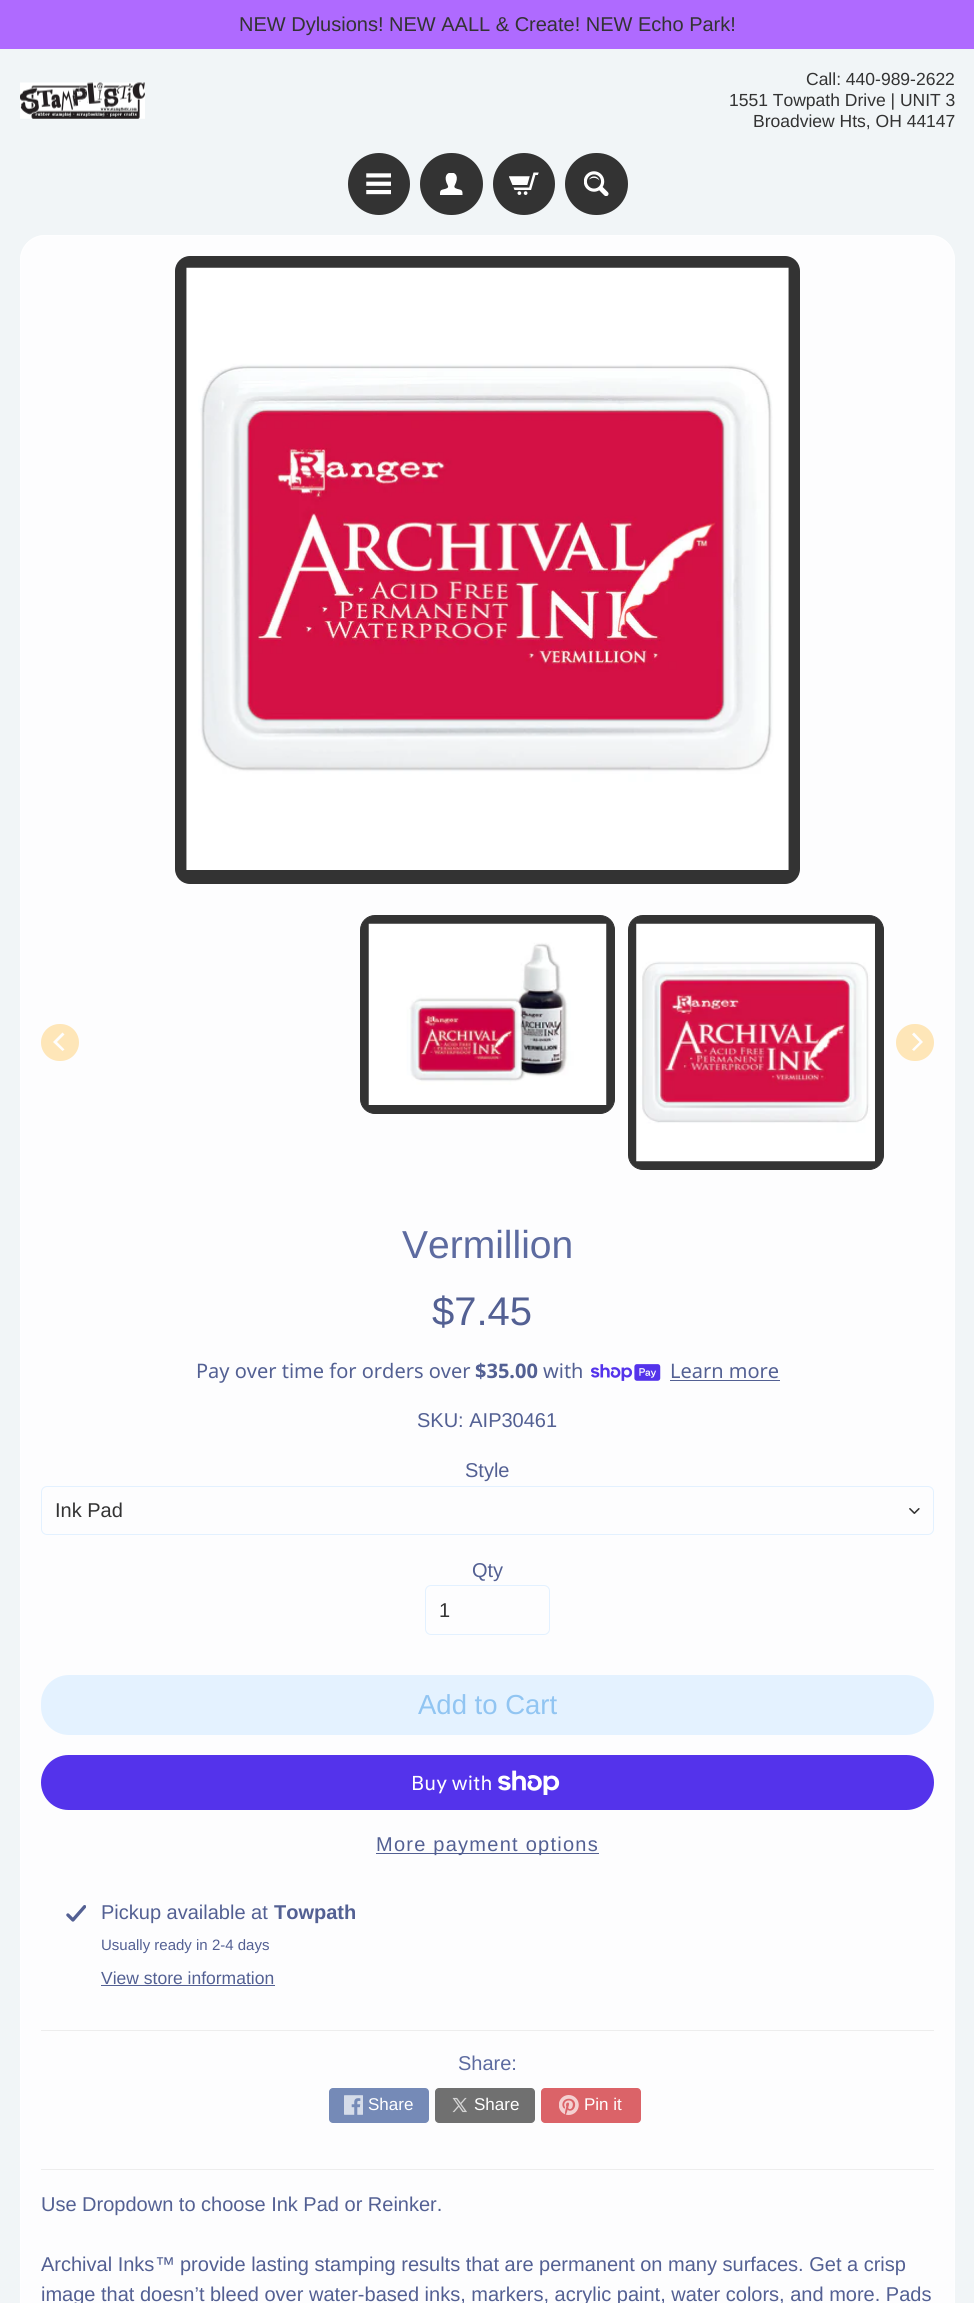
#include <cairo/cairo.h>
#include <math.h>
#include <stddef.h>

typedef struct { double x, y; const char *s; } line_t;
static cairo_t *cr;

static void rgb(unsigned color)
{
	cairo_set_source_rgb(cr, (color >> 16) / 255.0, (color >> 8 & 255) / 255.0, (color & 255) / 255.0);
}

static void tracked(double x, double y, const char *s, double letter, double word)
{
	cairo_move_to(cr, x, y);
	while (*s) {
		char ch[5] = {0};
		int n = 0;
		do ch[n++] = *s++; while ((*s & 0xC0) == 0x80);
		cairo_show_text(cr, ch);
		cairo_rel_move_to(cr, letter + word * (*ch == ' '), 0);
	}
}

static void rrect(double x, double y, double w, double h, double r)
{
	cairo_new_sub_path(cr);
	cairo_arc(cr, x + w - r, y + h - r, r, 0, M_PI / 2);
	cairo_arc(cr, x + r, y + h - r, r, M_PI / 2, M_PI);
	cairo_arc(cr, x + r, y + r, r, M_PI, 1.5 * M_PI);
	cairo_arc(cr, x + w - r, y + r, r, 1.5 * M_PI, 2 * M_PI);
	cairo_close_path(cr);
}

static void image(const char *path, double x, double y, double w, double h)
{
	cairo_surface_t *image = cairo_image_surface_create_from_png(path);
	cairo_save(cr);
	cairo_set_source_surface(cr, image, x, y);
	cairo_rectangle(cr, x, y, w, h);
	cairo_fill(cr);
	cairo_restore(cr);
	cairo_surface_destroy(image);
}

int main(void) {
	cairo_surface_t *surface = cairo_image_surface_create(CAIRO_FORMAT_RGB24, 974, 2303);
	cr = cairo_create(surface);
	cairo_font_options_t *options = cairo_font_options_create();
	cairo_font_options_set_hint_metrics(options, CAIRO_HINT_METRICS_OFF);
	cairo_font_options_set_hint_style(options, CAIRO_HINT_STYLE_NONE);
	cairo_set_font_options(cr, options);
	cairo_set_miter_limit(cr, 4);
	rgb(0xf1f5f7);
	cairo_paint(cr);
	rgb(0xaf6aff);
	cairo_rectangle(cr, 0, 0, 974, 49);
	cairo_fill(cr);
	image("img/1.png", 20, 82, 125, 37);
	rgb(0x333333);
	cairo_arc(cr, 379, 184, 29, 0, 2 * M_PI);
	cairo_fill_preserve(cr);
	cairo_set_line_width(cr, 4);
	cairo_stroke(cr);
	image("img/2.png", 366, 173, 25, 22);
	rrect(422, 155, 59, 58, 29);
	cairo_fill_preserve(cr);
	cairo_stroke(cr);
	image("img/3.png", 440, 173, 23, 22);
	cairo_arc(cr, 524, 184, 29, 0, 2 * M_PI);
	cairo_fill_preserve(cr);
	cairo_stroke(cr);
	image("img/4.png", 509, 172, 30, 23);
	rrect(567, 155, 59, 58, 29);
	cairo_fill_preserve(cr);
	cairo_stroke(cr);
	image("img/5.png", 584, 171, 25, 25);
	rgb(0xfdfdfe);
	rrect(20, 235, 935, 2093, 25);
	cairo_fill(cr);
	rrect(20.5, 235.5, 934, 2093, 24.5);
	cairo_set_source_rgba(cr, 1, 1, 1, 0.7);
	cairo_set_line_width(cr, 1);
	cairo_stroke(cr);
	rgb(0x333333);
	rrect(175, 256, 625, 628, 15);
	cairo_fill(cr);
	image("img/6.png", 186, 267, 603, 603);
	rgb(0xfee6b8);
	rrect(41, 1024, 38, 37, 18.5);
	cairo_fill(cr);
	rgb(0xfefefe);
	cairo_new_path(cr);
	cairo_move_to(cr, 53, 1042);
	cairo_line_to(cr, 62.5, 1051);
	cairo_line_to(cr, 64.5, 1049.5);
	cairo_line_to(cr, 57, 1042);
	cairo_line_to(cr, 64.5, 1034.5);
	cairo_line_to(cr, 62.5, 1032.5);
	cairo_close_path(cr);
	cairo_fill(cr);
	rgb(0x333333);
	rrect(360.5, 915.5, 254, 198, 14.5);
	cairo_fill_preserve(cr);
	cairo_stroke(cr);
	image("img/7.png", 368, 923, 239, 182);
	rrect(628.5, 915.5, 255, 254, 14.5);
	cairo_fill_preserve(cr);
	cairo_stroke(cr);
	image("img/8.png", 636, 923, 239, 239);
	rgb(0xfee6b8);
	rrect(896, 1024, 38, 37, 18.5);
	cairo_fill(cr);
	rgb(0xfefefe);
	cairo_new_path(cr);
	cairo_move_to(cr, 923, 1042);
	cairo_line_to(cr, 914, 1032.5);
	cairo_line_to(cr, 912, 1034.5);
	cairo_line_to(cr, 919.5, 1042);
	cairo_line_to(cr, 912, 1049.5);
	cairo_line_to(cr, 914, 1051);
	cairo_close_path(cr);
	cairo_fill(cr);
	image("img/9.png", 591, 1364, 70, 17);
	rgb(0x536093);
	cairo_rectangle(cr, 670, 1380, 110, 1);
	cairo_fill(cr);
	image("img/10.png", 909, 1508, 11, 6);
	rrect(41.5, 1486.5, 892, 48, 5.5);
	rgb(0xe3f1ff);
	cairo_stroke(cr);
	rrect(425.5, 1585.5, 124, 49, 5.5);
	cairo_stroke(cr);
	rgb(0xe4f2ff);
	rrect(41, 1675, 893, 60, 28);
	cairo_fill(cr);
	rgb(0x5433eb);
	rrect(41, 1755, 893, 55, 27.5);
	cairo_fill(cr);
	image("img/11.png", 498, 1770, 62, 25);
	rgb(0x536093);
	cairo_rectangle(cr, 376, 1853, 223, 1);
	cairo_fill(cr);
	image("img/12.png", 66, 1905, 20, 17);
	cairo_rectangle(cr, 101, 1985, 174, 1);
	cairo_fill(cr);
	rgb(0xededed);
	cairo_rectangle(cr, 41, 2030, 893, 1);
	cairo_fill(cr);
	rgb(0x758ab7);
	rrect(329, 2088, 100, 35, 4);
	cairo_fill(cr);
	image("img/13.png", 344, 2095, 19, 20);
	rgb(0x707070);
	rrect(435, 2088, 100, 35, 4);
	cairo_fill(cr);
	image("img/14.png", 452, 2097, 15, 16);
	rgb(0xdb6368);
	rrect(541, 2088, 100, 35, 4);
	cairo_fill(cr);
	image("img/15.png", 559, 2095, 20, 20);
	rgb(0xededed);
	cairo_rectangle(cr, 41, 2169, 893, 1);
	cairo_fill(cr);
	cairo_select_font_face(cr, "Arimo", CAIRO_FONT_SLANT_NORMAL, CAIRO_FONT_WEIGHT_NORMAL);
	cairo_set_font_size(cr, 20);
	rgb(0x333333);
	cairo_move_to(cr, 239, 31);
	cairo_show_text(cr, "NEW Dylusions! NEW AALL & Create! NEW Echo Park!");
	cairo_set_font_size(cr, 17.5);
	{
		static const line_t items[] = {
			{806, 85, "Call: 440-989-2622"},
			{729, 106, "1551 Towpath Drive | UNIT 3"},
			{753, 127, "Broadview Hts, OH 44147"},
		};
		for (size_t i = 0; i < sizeof items / sizeof *items; i++) {
			cairo_move_to(cr, items[i].x, items[i].y);
			cairo_show_text(cr, items[i].s);
		}
	}
	cairo_set_font_size(cr, 39);
	rgb(0x5d6ba0);
	cairo_move_to(cr, 402, 1258);
	cairo_show_text(cr, "Vermillion");
	cairo_set_font_size(cr, 40);
	rgb(0x536093);
	cairo_move_to(cr, 432, 1325);
	cairo_show_text(cr, "$7.45");
	cairo_select_font_face(cr, "Noto Sans", CAIRO_FONT_SLANT_NORMAL, CAIRO_FONT_WEIGHT_NORMAL);
	cairo_set_font_size(cr, 20);
	cairo_move_to(cr, 196, 1378);
	cairo_show_text(cr, "Pay over time for orders over");
	cairo_select_font_face(cr, "Noto Sans", CAIRO_FONT_SLANT_NORMAL, CAIRO_FONT_WEIGHT_BOLD);
	cairo_move_to(cr, 475, 1378);
	cairo_show_text(cr, "$35.00");
	cairo_select_font_face(cr, "Noto Sans", CAIRO_FONT_SLANT_NORMAL, CAIRO_FONT_WEIGHT_NORMAL);
	cairo_move_to(cr, 543, 1378);
	cairo_show_text(cr, "with");
	cairo_move_to(cr, 670, 1378);
	cairo_show_text(cr, "Learn more");
	cairo_select_font_face(cr, "Arimo", CAIRO_FONT_SLANT_NORMAL, CAIRO_FONT_WEIGHT_NORMAL);
	cairo_move_to(cr, 417, 1427);
	cairo_show_text(cr, "SKU: AIP30461");
	cairo_move_to(cr, 465, 1477);
	cairo_show_text(cr, "Style");
	rgb(0x333333);
	cairo_move_to(cr, 55, 1517);
	cairo_show_text(cr, "Ink Pad");
	rgb(0x536093);
	cairo_move_to(cr, 472, 1577);
	cairo_show_text(cr, "Qty");
	rgb(0x333333);
	cairo_move_to(cr, 439, 1617);
	cairo_show_text(cr, "1");
	cairo_set_font_size(cr, 27.5);
	rgb(0x91c5f2);
	cairo_move_to(cr, 418, 1714);
	cairo_show_text(cr, "Add to Cart");
	cairo_select_font_face(cr, "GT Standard", CAIRO_FONT_SLANT_NORMAL, CAIRO_FONT_WEIGHT_NORMAL);
	cairo_set_font_size(cr, 20);
	rgb(0xffffff);
	cairo_move_to(cr, 411, 1790);
	cairo_show_text(cr, "Buy with");
	cairo_select_font_face(cr, "Arimo", CAIRO_FONT_SLANT_NORMAL, CAIRO_FONT_WEIGHT_NORMAL);
	rgb(0x536093);
	tracked(376, 1851, "More payment options", 1.25, 0);
	cairo_move_to(cr, 101, 1919);
	cairo_show_text(cr, "Pickup available at");
	cairo_select_font_face(cr, "Arimo", CAIRO_FONT_SLANT_NORMAL, CAIRO_FONT_WEIGHT_BOLD);
	cairo_move_to(cr, 274, 1919);
	cairo_show_text(cr, "Towpath");
	cairo_select_font_face(cr, "Arimo", CAIRO_FONT_SLANT_NORMAL, CAIRO_FONT_WEIGHT_NORMAL);
	cairo_set_font_size(cr, 15);
	cairo_move_to(cr, 101, 1950);
	cairo_show_text(cr, "Usually ready in 2-4 days");
	cairo_set_font_size(cr, 17.5);
	cairo_move_to(cr, 101, 1984);
	cairo_show_text(cr, "View store information");
	cairo_set_font_size(cr, 20);
	rgb(0x5d6ba0);
	cairo_move_to(cr, 458, 2070);
	cairo_show_text(cr, "Share:");
	cairo_set_font_size(cr, 17);
	rgb(0xffffff);
	{
		static const line_t items[] = {
			{368, 2110, "Share"},
			{474, 2110, "Share"},
			{584, 2110, "Pin it"},
		};
		for (size_t i = 0; i < sizeof items / sizeof *items; i++) {
			cairo_move_to(cr, items[i].x, items[i].y);
			cairo_show_text(cr, items[i].s);
		}
	}
	cairo_set_font_size(cr, 20);
	rgb(0x536093);
	cairo_move_to(cr, 41, 2211);
	cairo_show_text(cr, "Use Dropdown to choose Ink Pad or Reinker.");
	cairo_move_to(cr, 41, 2271);
	cairo_show_text(cr, "Archival Inks");
	cairo_select_font_face(cr, "Liberation Sans", CAIRO_FONT_SLANT_NORMAL, CAIRO_FONT_WEIGHT_NORMAL);
	cairo_move_to(cr, 155, 2271);
	cairo_show_text(cr, "™");
	cairo_select_font_face(cr, "Arimo", CAIRO_FONT_SLANT_NORMAL, CAIRO_FONT_WEIGHT_NORMAL);
	cairo_move_to(cr, 180, 2271);
	cairo_show_text(cr, "provide lasting stamping results that are permanent on many surfaces. Get a crisp");
	cairo_move_to(cr, 41, 2301);
	cairo_show_text(cr, "image that doesn’t bleed over water-based inks, markers, acrylic paint, water colors, and more. Pads");
	cairo_surface_write_to_png(surface, "page.png");
	cairo_font_options_destroy(options);
	cairo_destroy(cr);
	cairo_surface_destroy(surface);
	return 0;
}
